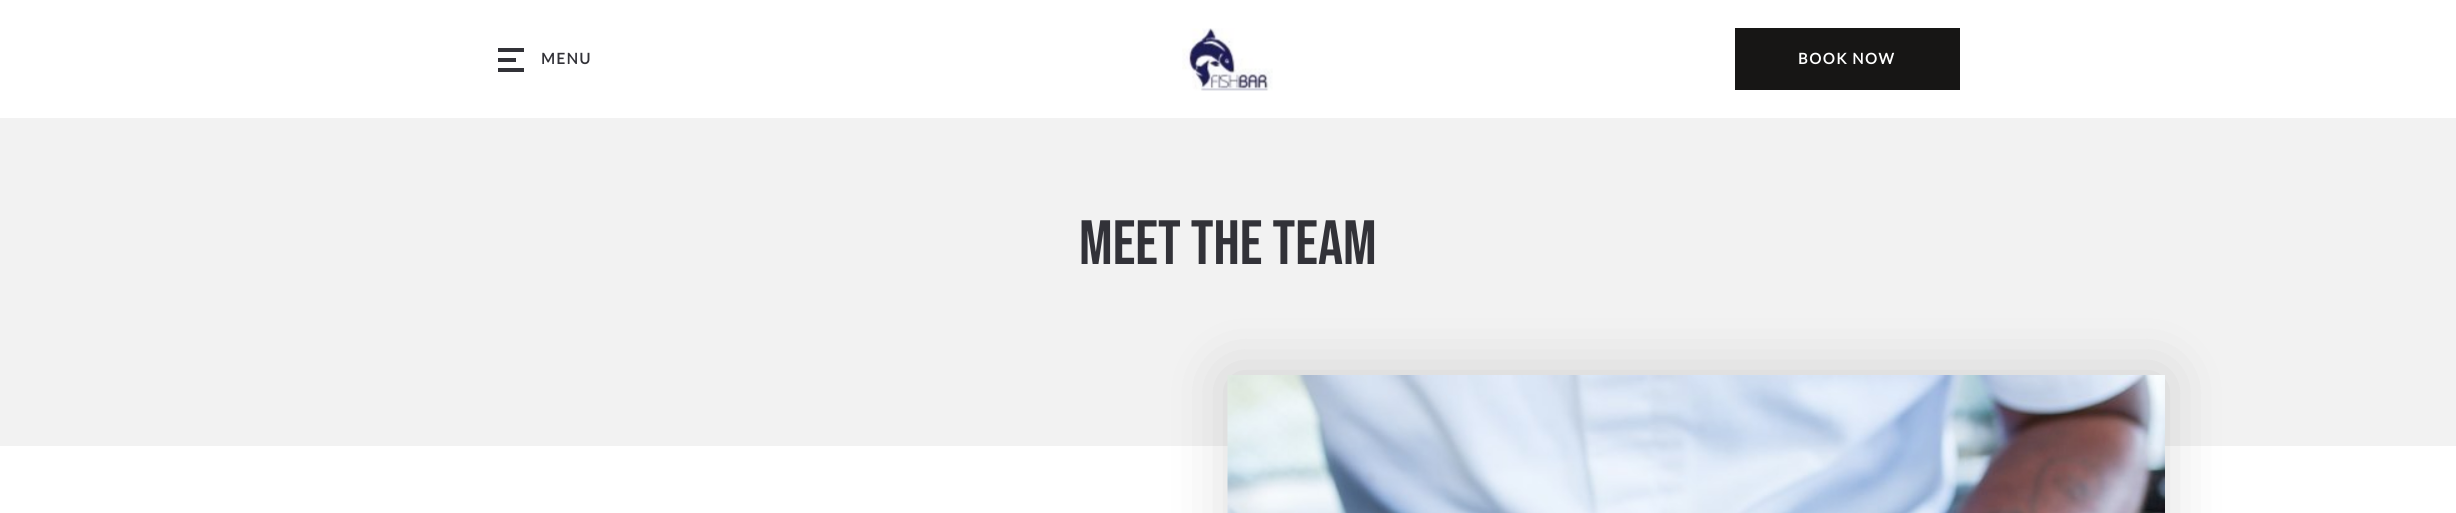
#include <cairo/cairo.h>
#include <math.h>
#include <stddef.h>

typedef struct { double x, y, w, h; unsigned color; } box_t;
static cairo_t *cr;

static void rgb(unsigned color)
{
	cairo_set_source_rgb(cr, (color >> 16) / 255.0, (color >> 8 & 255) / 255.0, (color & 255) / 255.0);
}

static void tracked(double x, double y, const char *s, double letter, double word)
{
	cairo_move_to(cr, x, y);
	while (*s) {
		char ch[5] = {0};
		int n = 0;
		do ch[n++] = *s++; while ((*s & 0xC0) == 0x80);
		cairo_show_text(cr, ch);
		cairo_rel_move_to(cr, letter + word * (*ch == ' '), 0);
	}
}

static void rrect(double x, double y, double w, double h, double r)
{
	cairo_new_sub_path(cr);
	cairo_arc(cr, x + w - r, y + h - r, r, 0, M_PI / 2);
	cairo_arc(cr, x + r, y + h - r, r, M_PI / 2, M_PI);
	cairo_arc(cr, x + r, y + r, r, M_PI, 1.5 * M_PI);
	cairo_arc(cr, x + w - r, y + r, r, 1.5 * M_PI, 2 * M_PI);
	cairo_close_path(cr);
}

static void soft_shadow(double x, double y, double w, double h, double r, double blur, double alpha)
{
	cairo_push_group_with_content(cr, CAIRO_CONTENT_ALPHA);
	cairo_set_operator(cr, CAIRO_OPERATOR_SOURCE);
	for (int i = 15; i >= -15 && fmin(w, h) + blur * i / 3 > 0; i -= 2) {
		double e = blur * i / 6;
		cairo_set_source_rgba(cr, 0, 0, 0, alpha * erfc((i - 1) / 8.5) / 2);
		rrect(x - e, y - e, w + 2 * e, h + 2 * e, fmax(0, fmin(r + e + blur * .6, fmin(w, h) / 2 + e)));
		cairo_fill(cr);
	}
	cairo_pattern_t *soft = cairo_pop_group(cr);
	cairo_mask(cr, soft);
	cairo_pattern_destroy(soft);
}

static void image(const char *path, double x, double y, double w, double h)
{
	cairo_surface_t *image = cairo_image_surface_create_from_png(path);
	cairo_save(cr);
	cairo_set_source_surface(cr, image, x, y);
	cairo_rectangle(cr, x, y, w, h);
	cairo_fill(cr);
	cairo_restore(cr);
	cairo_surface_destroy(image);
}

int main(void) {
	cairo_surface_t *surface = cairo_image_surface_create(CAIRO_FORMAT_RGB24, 2456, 513);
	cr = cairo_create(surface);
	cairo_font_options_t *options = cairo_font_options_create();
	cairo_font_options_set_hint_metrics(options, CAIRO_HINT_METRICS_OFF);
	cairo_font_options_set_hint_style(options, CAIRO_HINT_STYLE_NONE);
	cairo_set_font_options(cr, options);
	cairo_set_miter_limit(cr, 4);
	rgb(0xffffff);
	cairo_paint(cr);
	{
		static const box_t items[] = {
			{498, 48, 26, 4, 0x323238},
			{498, 58, 18, 4, 0x323238},
			{498, 68, 26, 4, 0x323238},
		};
		for (size_t i = 0; i < sizeof items / sizeof *items; i++) {
			rgb(items[i].color);
			cairo_rectangle(cr, items[i].x, items[i].y, items[i].w, items[i].h);
			cairo_fill(cr);
		}
	}
	image("img/1.png", 1182, 28, 91, 63);
	rgb(0x171615);
	cairo_rectangle(cr, 1735, 28, 225, 62);
	cairo_fill(cr);
	rgb(0xf2f2f2);
	cairo_rectangle(cr, 0, 118, 2456, 328);
	cairo_fill(cr);
	rgb(0x000000);
	soft_shadow(1228, 375, 937, 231, 0, 31, 0.15);
	image("img/2.png", 1227, 375, 938, 138);
	cairo_select_font_face(cr, "Lato", CAIRO_FONT_SLANT_NORMAL, CAIRO_FONT_WEIGHT_BOLD);
	cairo_set_font_size(cr, 15);
	rgb(0x323238);
	tracked(541, 64, "MENU", 1.5, 0);
	rgb(0xffffff);
	tracked(1798, 64, "BOOK NOW", 1.5, 0);
	cairo_select_font_face(cr, "Bebas Neue", CAIRO_FONT_SLANT_NORMAL, CAIRO_FONT_WEIGHT_NORMAL);
	cairo_set_font_size(cr, 62.5);
	rgb(0x323238);
	cairo_move_to(cr, 1079, 264);
	cairo_show_text(cr, "Meet The Team");
	cairo_surface_write_to_png(surface, "page.png");
	cairo_font_options_destroy(options);
	cairo_destroy(cr);
	cairo_surface_destroy(surface);
	return 0;
}
